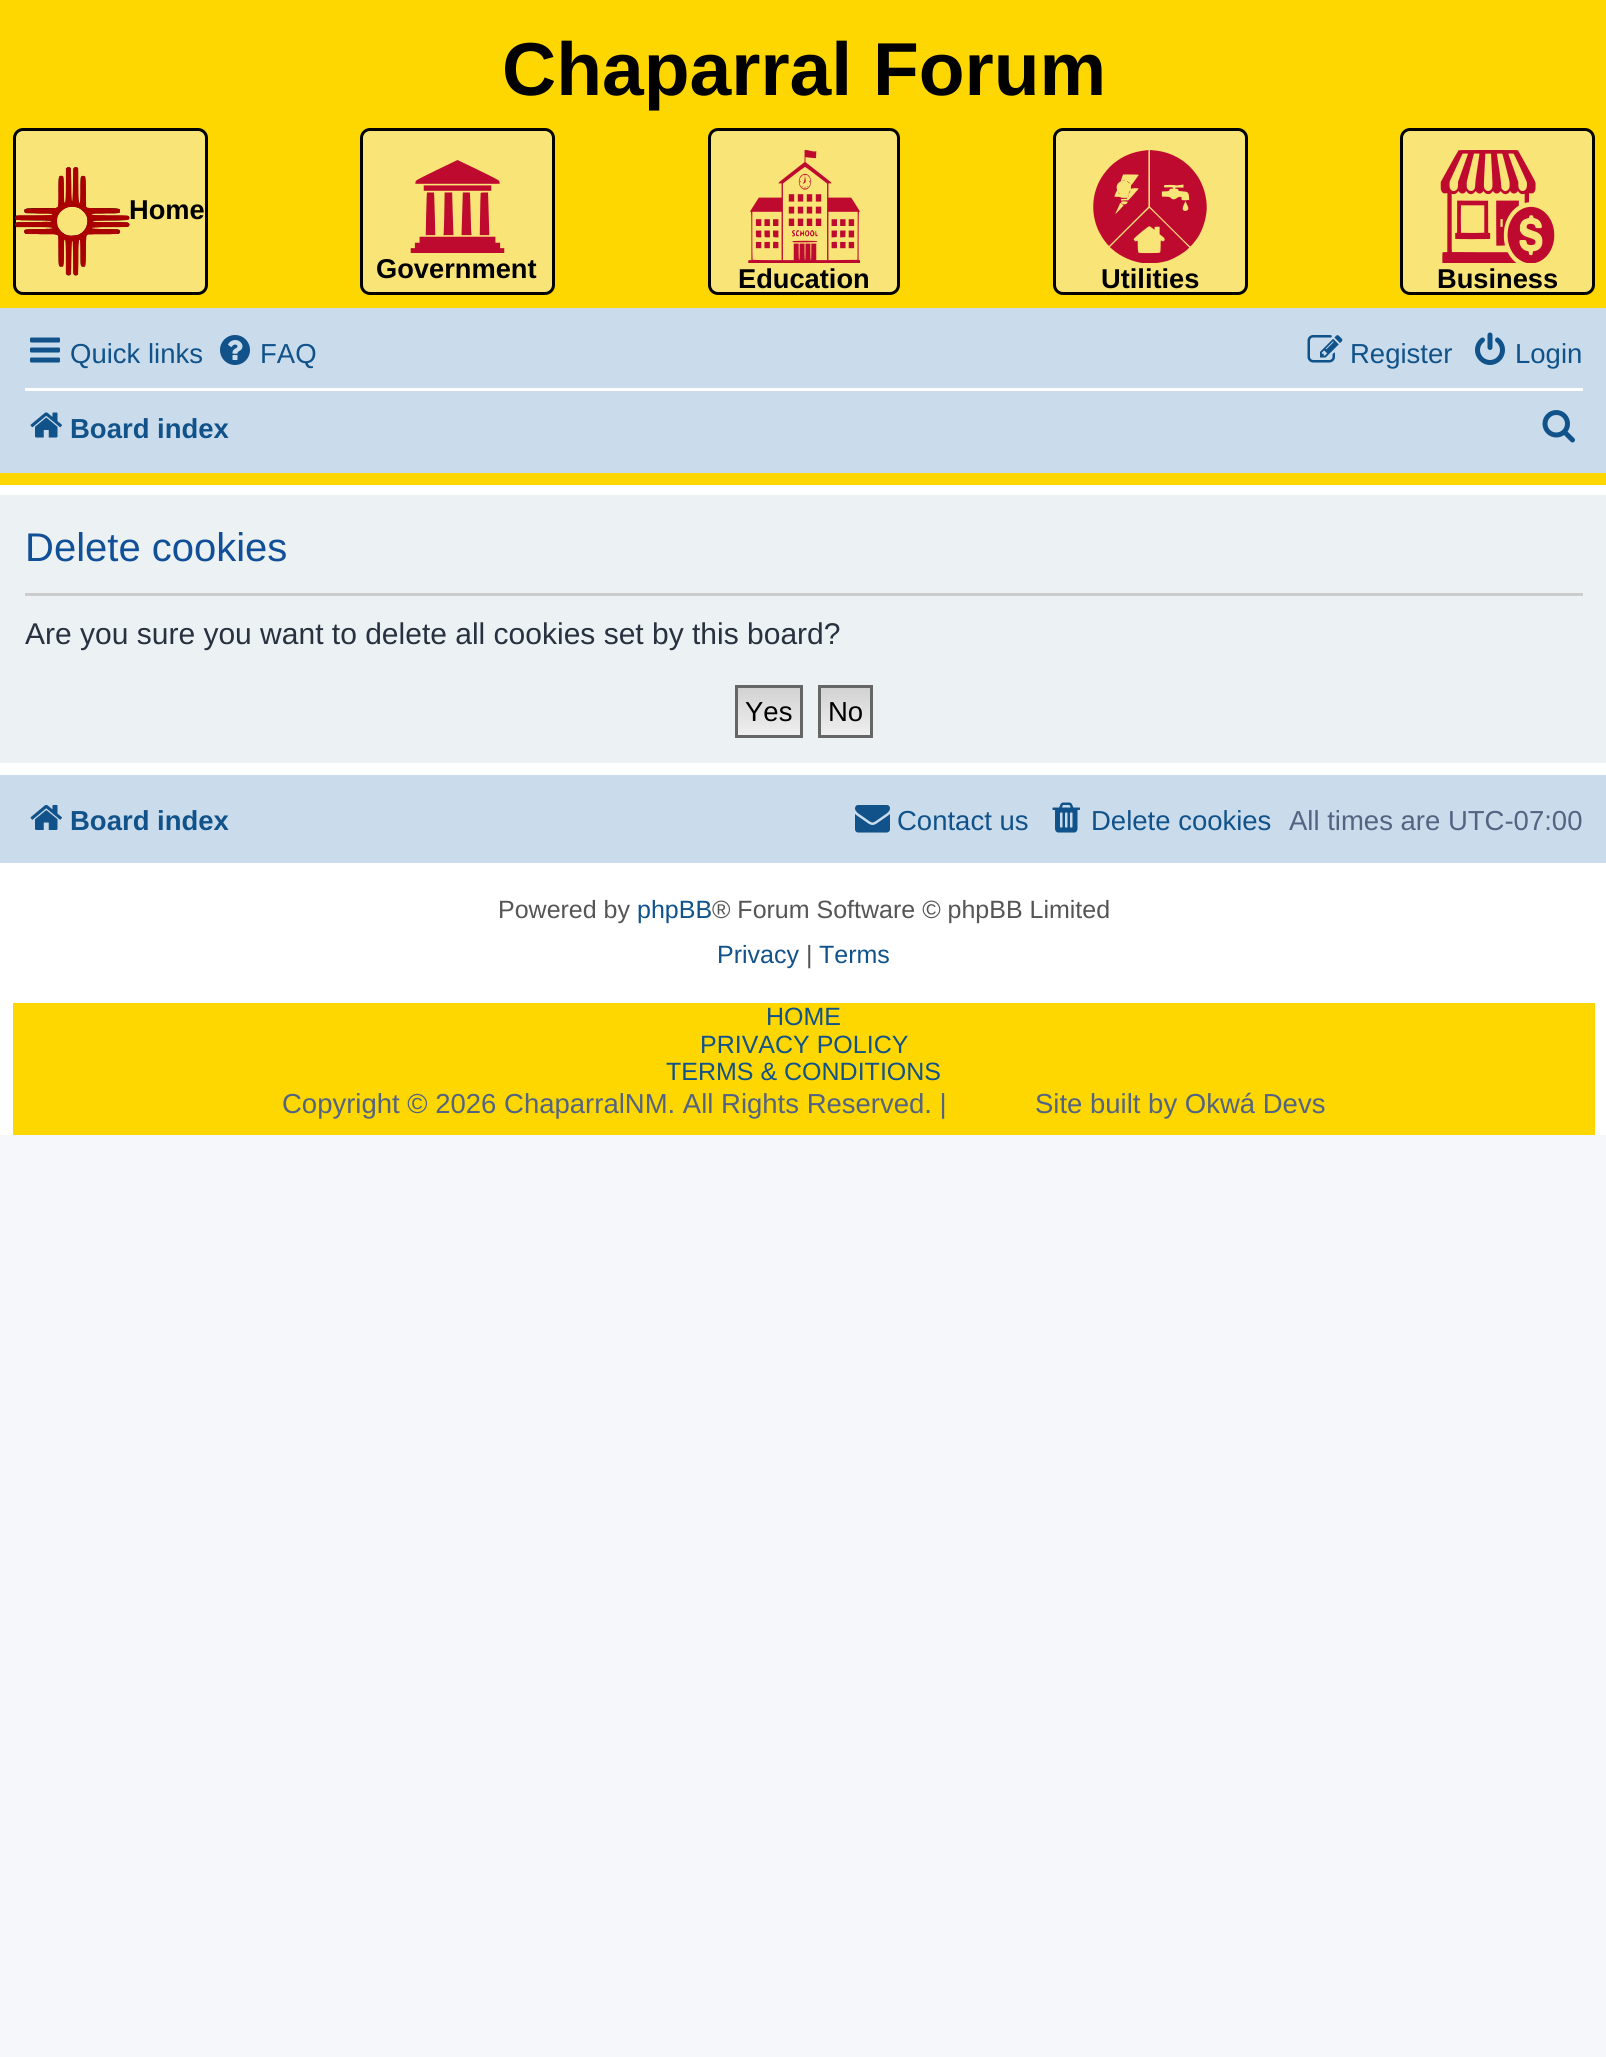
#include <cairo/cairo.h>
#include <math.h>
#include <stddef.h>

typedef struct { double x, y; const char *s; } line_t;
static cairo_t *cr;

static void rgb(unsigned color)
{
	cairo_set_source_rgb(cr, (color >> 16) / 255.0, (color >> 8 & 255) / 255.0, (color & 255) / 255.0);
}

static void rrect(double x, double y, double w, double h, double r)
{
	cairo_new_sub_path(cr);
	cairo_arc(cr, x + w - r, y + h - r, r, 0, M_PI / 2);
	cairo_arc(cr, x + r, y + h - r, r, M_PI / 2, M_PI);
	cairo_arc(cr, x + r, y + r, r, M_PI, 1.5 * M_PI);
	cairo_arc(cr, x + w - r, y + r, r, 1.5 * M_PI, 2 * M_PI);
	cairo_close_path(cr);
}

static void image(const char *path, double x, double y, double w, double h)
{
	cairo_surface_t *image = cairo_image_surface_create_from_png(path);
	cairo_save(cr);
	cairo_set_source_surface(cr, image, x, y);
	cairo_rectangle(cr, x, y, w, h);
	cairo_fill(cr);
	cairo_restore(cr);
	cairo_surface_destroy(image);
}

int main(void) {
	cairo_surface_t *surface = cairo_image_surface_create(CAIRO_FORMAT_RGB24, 1606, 2057);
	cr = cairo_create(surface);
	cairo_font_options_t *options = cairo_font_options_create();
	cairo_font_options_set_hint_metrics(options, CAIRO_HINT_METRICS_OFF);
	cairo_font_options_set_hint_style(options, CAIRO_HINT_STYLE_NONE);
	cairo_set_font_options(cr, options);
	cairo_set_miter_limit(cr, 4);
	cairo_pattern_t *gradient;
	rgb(0xf5f7fa);
	cairo_paint(cr);
	rgb(0xffffff);
	cairo_rectangle(cr, 0, 485, 1606, 650);
	cairo_fill(cr);
	rgb(0xffd700);
	cairo_rectangle(cr, 0, 0, 1606, 485);
	cairo_fill(cr);
	rgb(0xf9e478);
	rrect(14.5, 129.5, 192, 164, 8.5);
	cairo_fill_preserve(cr);
	rgb(0x000000);
	cairo_set_line_width(cr, 3);
	cairo_stroke(cr);
	image("img/1.png", 15, 167, 115, 109);
	rgb(0xf9e478);
	rrect(361.5, 129.5, 192, 164, 8.5);
	cairo_fill_preserve(cr);
	rgb(0x000000);
	cairo_stroke(cr);
	image("img/2.png", 410, 160, 95, 93);
	rgb(0xf9e478);
	rrect(709.5, 129.5, 189, 164, 8.5);
	cairo_fill_preserve(cr);
	rgb(0x000000);
	cairo_stroke(cr);
	image("img/3.png", 748, 150, 112, 113);
	rgb(0xf9e478);
	rrect(1054.5, 129.5, 192, 164, 8.5);
	cairo_fill_preserve(cr);
	rgb(0x000000);
	cairo_stroke(cr);
	image("img/4.png", 1093, 150, 114, 113);
	rgb(0xf9e478);
	rrect(1401.5, 129.5, 192, 164, 8.5);
	cairo_fill_preserve(cr);
	rgb(0x000000);
	cairo_stroke(cr);
	image("img/5.png", 1440, 150, 115, 113);
	rgb(0xcadceb);
	cairo_rectangle(cr, 0, 308, 1606, 165);
	cairo_fill(cr);
	image("img/6.png", 30, 337, 30, 26);
	image("img/7.png", 220, 335, 30, 30);
	image("img/8.png", 1307, 335, 36, 28);
	image("img/9.png", 1475, 332, 30, 33);
	rgb(0xffffff);
	cairo_rectangle(cr, 25, 388, 1558, 3);
	cairo_fill(cr);
	image("img/10.png", 30, 412, 32, 26);
	image("img/11.png", 1542, 410, 33, 33);
	rgb(0xecf1f3);
	cairo_rectangle(cr, 0, 495, 1606, 268);
	cairo_fill(cr);
	rgb(0xcccccc);
	cairo_rectangle(cr, 25, 593, 1558, 3);
	cairo_fill(cr);
	gradient = cairo_pattern_create_linear(769, 688, 769, 735);
	cairo_pattern_add_color_stop_rgba(gradient, 0, 0.824, 0.824, 0.824, 1);
	cairo_pattern_add_color_stop_rgba(gradient, 1, 0.937, 0.937, 0.937, 1);
	cairo_set_source(cr, gradient);
	cairo_pattern_destroy(gradient);
	cairo_rectangle(cr, 738, 688, 62, 47);
	cairo_fill(cr);
	cairo_rectangle(cr, 736.5, 686.5, 65, 50);
	rgb(0x666666);
	cairo_stroke(cr);
	gradient = cairo_pattern_create_linear(845, 688, 845, 735);
	cairo_pattern_add_color_stop_rgba(gradient, 0, 0.824, 0.824, 0.824, 1);
	cairo_pattern_add_color_stop_rgba(gradient, 1, 0.937, 0.937, 0.937, 1);
	cairo_set_source(cr, gradient);
	cairo_pattern_destroy(gradient);
	cairo_rectangle(cr, 821, 688, 49, 47);
	cairo_fill(cr);
	cairo_rectangle(cr, 819.5, 686.5, 52, 50);
	rgb(0x666666);
	cairo_stroke(cr);
	rgb(0xcadceb);
	cairo_rectangle(cr, 0, 775, 1606, 88);
	cairo_fill(cr);
	image("img/12.png", 30, 804, 32, 26);
	image("img/13.png", 855, 805, 35, 28);
	image("img/14.png", 1052, 802, 28, 31);
	rgb(0xffd700);
	cairo_rectangle(cr, 13, 1003, 1582, 132);
	cairo_fill(cr);
	cairo_select_font_face(cr, "Liberation Sans", CAIRO_FONT_SLANT_NORMAL, CAIRO_FONT_WEIGHT_BOLD);
	cairo_set_font_size(cr, 75);
	rgb(0x000000);
	cairo_move_to(cr, 502, 95);
	cairo_show_text(cr, "Chaparral Forum");
	cairo_set_font_size(cr, 27.25);
	{
		static const line_t items[] = {
			{129, 219, "Home"},
			{376, 278, "Government"},
			{738, 288, "Education"},
			{1101, 288, "Utilities"},
			{1437, 288, "Business"},
		};
		for (size_t i = 0; i < sizeof items / sizeof *items; i++) {
			cairo_move_to(cr, items[i].x, items[i].y);
			cairo_show_text(cr, items[i].s);
		}
	}
	cairo_select_font_face(cr, "Liberation Sans", CAIRO_FONT_SLANT_NORMAL, CAIRO_FONT_WEIGHT_NORMAL);
	cairo_set_font_size(cr, 27.5);
	rgb(0x105289);
	{
		static const line_t items[] = {
			{70, 363, "Quick links"},
			{260, 363, "FAQ"},
			{1350, 363, "Register"},
			{1515, 363, "Login"},
		};
		for (size_t i = 0; i < sizeof items / sizeof *items; i++) {
			cairo_move_to(cr, items[i].x, items[i].y);
			cairo_show_text(cr, items[i].s);
		}
	}
	cairo_select_font_face(cr, "Liberation Sans", CAIRO_FONT_SLANT_NORMAL, CAIRO_FONT_WEIGHT_BOLD);
	cairo_move_to(cr, 70, 438);
	cairo_show_text(cr, "Board index");
	cairo_select_font_face(cr, "Liberation Sans", CAIRO_FONT_SLANT_NORMAL, CAIRO_FONT_WEIGHT_NORMAL);
	cairo_set_font_size(cr, 40);
	rgb(0x115098);
	cairo_move_to(cr, 25, 561);
	cairo_show_text(cr, "Delete cookies");
	cairo_set_font_size(cr, 30);
	rgb(0x28313f);
	cairo_move_to(cr, 25, 644);
	cairo_show_text(cr, "Are you sure you want to delete all cookies set by this board?");
	cairo_set_font_size(cr, 27.5);
	rgb(0x000000);
	cairo_move_to(cr, 745, 721);
	cairo_show_text(cr, "Yes");
	cairo_move_to(cr, 828, 721);
	cairo_show_text(cr, "No");
	cairo_select_font_face(cr, "Liberation Sans", CAIRO_FONT_SLANT_NORMAL, CAIRO_FONT_WEIGHT_BOLD);
	rgb(0x105289);
	cairo_move_to(cr, 70, 830);
	cairo_show_text(cr, "Board index");
	cairo_select_font_face(cr, "Liberation Sans", CAIRO_FONT_SLANT_NORMAL, CAIRO_FONT_WEIGHT_NORMAL);
	cairo_move_to(cr, 897, 830);
	cairo_show_text(cr, "Contact us");
	cairo_move_to(cr, 1091, 830);
	cairo_show_text(cr, "Delete cookies");
	rgb(0x536482);
	cairo_move_to(cr, 1289, 830);
	cairo_show_text(cr, "All times are UTC-07:00");
	cairo_set_font_size(cr, 25);
	rgb(0x555555);
	cairo_move_to(cr, 498, 918);
	cairo_show_text(cr, "Powered by");
	rgb(0x105289);
	cairo_move_to(cr, 637, 918);
	cairo_show_text(cr, "phpBB");
	rgb(0x555555);
	cairo_move_to(cr, 712, 918);
	cairo_show_text(cr, "® Forum Software © phpBB Limited");
	rgb(0x105289);
	cairo_move_to(cr, 717, 963);
	cairo_show_text(cr, "Privacy");
	rgb(0x555555);
	cairo_move_to(cr, 806, 963);
	cairo_show_text(cr, "|");
	rgb(0x105289);
	{
		static const line_t items[] = {
			{819, 963, "Terms"},
			{766, 1025, "HOME"},
			{700, 1053, "PRIVACY POLICY"},
			{666, 1080, "TERMS & CONDITIONS"},
		};
		for (size_t i = 0; i < sizeof items / sizeof *items; i++) {
			cairo_move_to(cr, items[i].x, items[i].y);
			cairo_show_text(cr, items[i].s);
		}
	}
	cairo_set_font_size(cr, 27.5);
	rgb(0x536482);
	cairo_move_to(cr, 282, 1113);
	cairo_show_text(cr, "Copyright © 2026 ChaparralNM. All Rights Reserved. |");
	cairo_move_to(cr, 1035, 1113);
	cairo_show_text(cr, "Site built by Okwá Devs");
	cairo_surface_write_to_png(surface, "page.png");
	cairo_font_options_destroy(options);
	cairo_destroy(cr);
	cairo_surface_destroy(surface);
	return 0;
}
